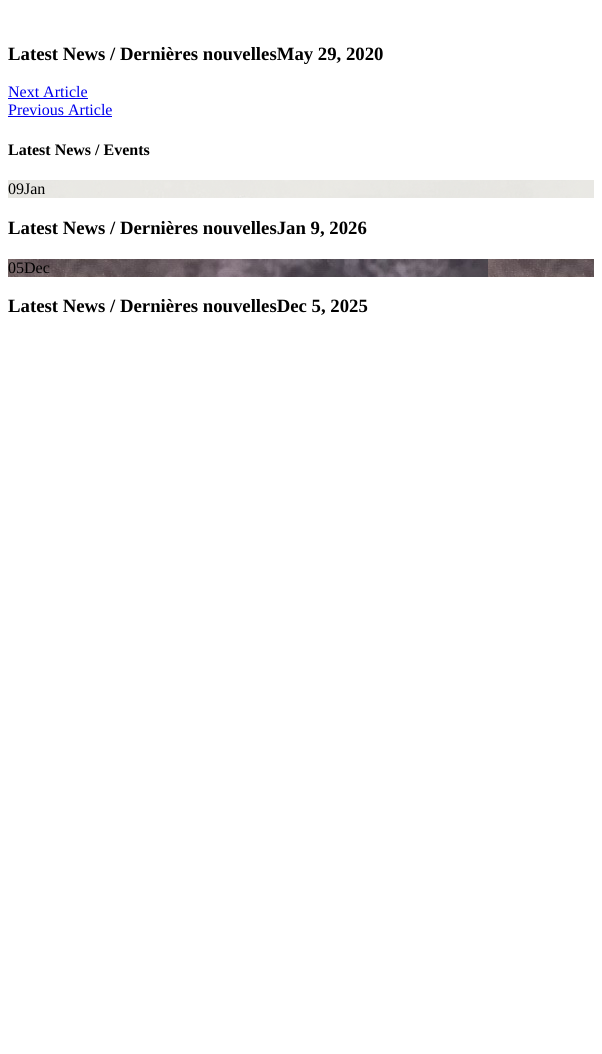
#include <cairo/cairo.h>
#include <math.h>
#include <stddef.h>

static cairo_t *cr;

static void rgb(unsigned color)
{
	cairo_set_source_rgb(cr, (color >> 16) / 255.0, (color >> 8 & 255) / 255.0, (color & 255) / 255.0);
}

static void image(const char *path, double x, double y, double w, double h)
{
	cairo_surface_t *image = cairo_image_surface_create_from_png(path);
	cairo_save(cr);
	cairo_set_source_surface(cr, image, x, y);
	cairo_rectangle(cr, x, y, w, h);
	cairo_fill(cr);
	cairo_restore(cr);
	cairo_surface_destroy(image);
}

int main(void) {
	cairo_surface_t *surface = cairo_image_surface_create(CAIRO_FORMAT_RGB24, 602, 1054);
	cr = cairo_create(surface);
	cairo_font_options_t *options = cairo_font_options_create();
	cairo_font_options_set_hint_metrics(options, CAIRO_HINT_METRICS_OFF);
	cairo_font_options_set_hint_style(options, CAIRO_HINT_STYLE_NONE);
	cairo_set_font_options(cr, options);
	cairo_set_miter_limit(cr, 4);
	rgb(0xffffff);
	cairo_paint(cr);
	rgb(0x0000ee);
	cairo_rectangle(cr, 8, 98, 80, 1);
	cairo_fill(cr);
	cairo_rectangle(cr, 8, 116, 104, 1);
	cairo_fill(cr);
	image("img/1.png", 8, 180, 586, 18);
	image("img/2.png", 8, 259, 586, 18);
	cairo_select_font_face(cr, "Liberation Serif", CAIRO_FONT_SLANT_NORMAL, CAIRO_FONT_WEIGHT_BOLD);
	cairo_set_font_size(cr, 18.75);
	rgb(0x000000);
	cairo_move_to(cr, 8, 60);
	cairo_show_text(cr, "Latest News / Dernières nouvellesMay 29, 2020");
	cairo_select_font_face(cr, "Liberation Serif", CAIRO_FONT_SLANT_NORMAL, CAIRO_FONT_WEIGHT_NORMAL);
	cairo_set_font_size(cr, 16);
	rgb(0x0000ee);
	cairo_move_to(cr, 8, 97);
	cairo_show_text(cr, "Next Article");
	cairo_move_to(cr, 8, 115);
	cairo_show_text(cr, "Previous Article");
	cairo_select_font_face(cr, "Liberation Serif", CAIRO_FONT_SLANT_NORMAL, CAIRO_FONT_WEIGHT_BOLD);
	rgb(0x000000);
	cairo_move_to(cr, 8, 155);
	cairo_show_text(cr, "Latest News / Events");
	cairo_select_font_face(cr, "Liberation Serif", CAIRO_FONT_SLANT_NORMAL, CAIRO_FONT_WEIGHT_NORMAL);
	cairo_move_to(cr, 8, 194);
	cairo_show_text(cr, "09Jan");
	cairo_select_font_face(cr, "Liberation Serif", CAIRO_FONT_SLANT_NORMAL, CAIRO_FONT_WEIGHT_BOLD);
	cairo_set_font_size(cr, 18.75);
	cairo_move_to(cr, 8, 234);
	cairo_show_text(cr, "Latest News / Dernières nouvellesJan 9, 2026");
	cairo_select_font_face(cr, "Liberation Serif", CAIRO_FONT_SLANT_NORMAL, CAIRO_FONT_WEIGHT_NORMAL);
	cairo_set_font_size(cr, 16);
	cairo_move_to(cr, 8, 273);
	cairo_show_text(cr, "05Dec");
	cairo_select_font_face(cr, "Liberation Serif", CAIRO_FONT_SLANT_NORMAL, CAIRO_FONT_WEIGHT_BOLD);
	cairo_set_font_size(cr, 18.75);
	cairo_move_to(cr, 8, 312);
	cairo_show_text(cr, "Latest News / Dernières nouvellesDec 5, 2025");
	cairo_surface_write_to_png(surface, "page.png");
	cairo_font_options_destroy(options);
	cairo_destroy(cr);
	cairo_surface_destroy(surface);
	return 0;
}
